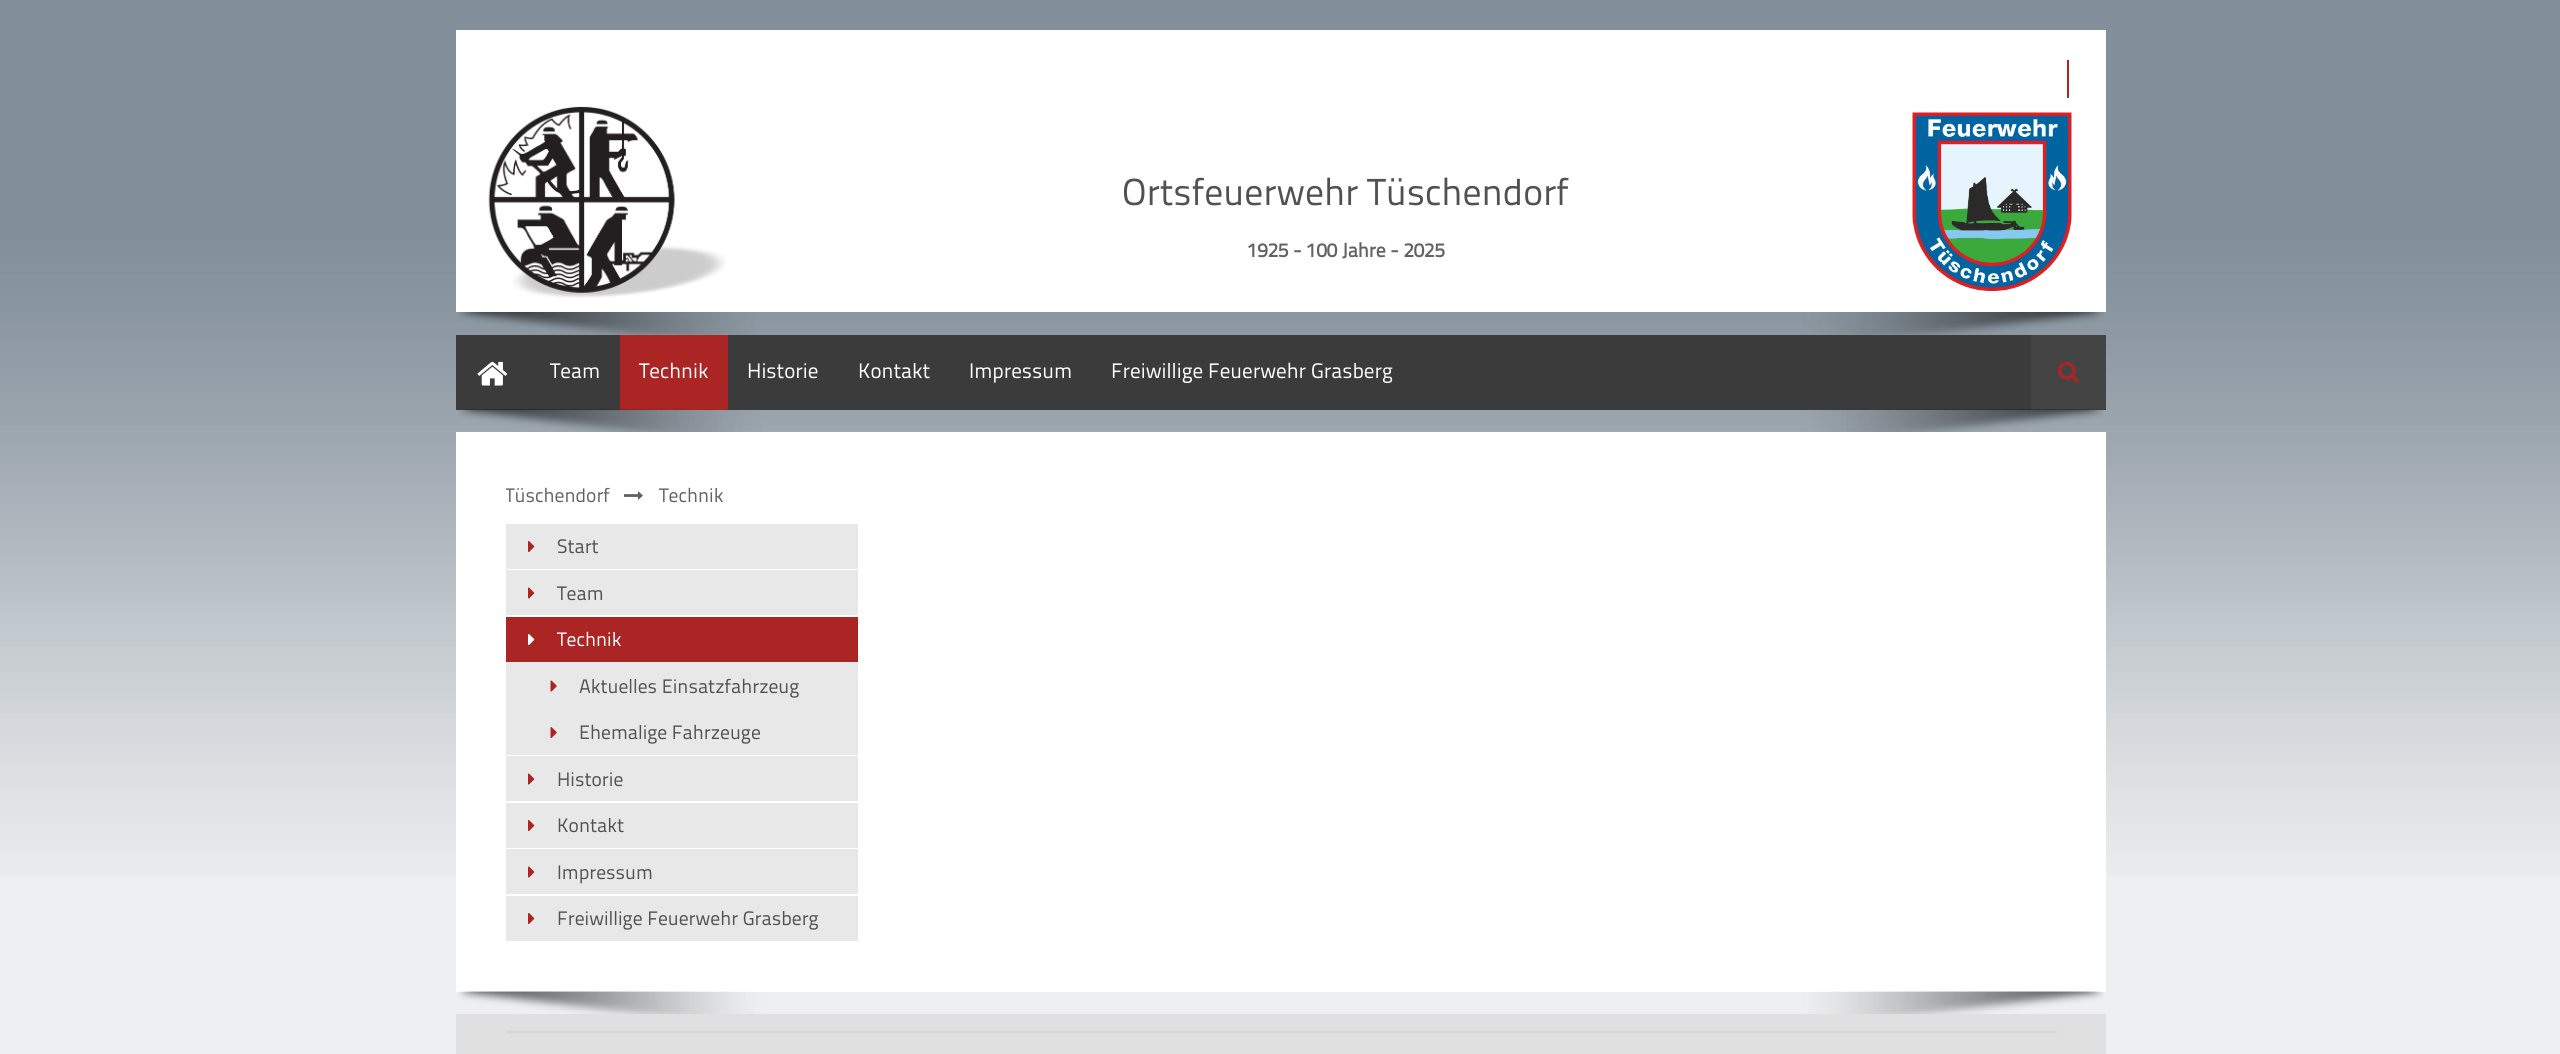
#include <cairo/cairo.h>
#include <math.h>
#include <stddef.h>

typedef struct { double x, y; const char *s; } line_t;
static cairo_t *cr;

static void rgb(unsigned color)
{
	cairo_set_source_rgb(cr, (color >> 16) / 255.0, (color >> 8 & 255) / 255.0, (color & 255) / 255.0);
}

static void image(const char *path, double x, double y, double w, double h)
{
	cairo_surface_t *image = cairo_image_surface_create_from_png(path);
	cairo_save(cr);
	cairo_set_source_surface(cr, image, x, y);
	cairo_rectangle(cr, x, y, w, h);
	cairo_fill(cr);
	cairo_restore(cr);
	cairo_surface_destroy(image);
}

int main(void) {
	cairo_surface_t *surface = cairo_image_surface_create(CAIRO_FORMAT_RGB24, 2560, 1054);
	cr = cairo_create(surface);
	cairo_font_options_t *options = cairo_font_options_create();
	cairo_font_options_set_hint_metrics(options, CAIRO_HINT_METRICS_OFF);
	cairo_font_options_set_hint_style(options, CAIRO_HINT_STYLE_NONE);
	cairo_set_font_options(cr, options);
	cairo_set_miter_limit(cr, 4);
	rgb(0xedeff0);
	cairo_paint(cr);
	image("img/1.png", 0, 0, 2560, 876);
	rgb(0xffffff);
	cairo_rectangle(cr, 456, 30, 1650, 282);
	cairo_fill(cr);
	rgb(0xab2524);
	cairo_rectangle(cr, 2067, 60, 2, 38);
	cairo_fill(cr);
	image("img/2.png", 488, 106, 238, 192);
	image("img/3.png", 1912, 112, 160, 179);
	image("img/4.png", 458, 312, 1646, 23);
	rgb(0x3b3b3b);
	cairo_rectangle(cr, 456, 335, 1575, 75);
	cairo_fill(cr);
	image("img/5.png", 477, 361, 31, 25);
	rgb(0xab2524);
	cairo_rectangle(cr, 620, 335, 108, 75);
	cairo_fill(cr);
	rgb(0x444444);
	cairo_rectangle(cr, 2031, 335, 75, 75);
	cairo_fill(cr);
	image("img/6.png", 2058, 361, 21, 22);
	image("img/7.png", 458, 409, 1646, 23);
	rgb(0xffffff);
	cairo_rectangle(cr, 456, 432, 1650, 560);
	cairo_fill(cr);
	image("img/8.png", 624, 491, 19, 9);
	rgb(0xe8e8e8);
	cairo_rectangle(cr, 506, 524, 352, 45);
	cairo_fill(cr);
	image("img/9.png", 528, 541, 7, 12);
	cairo_rectangle(cr, 506, 570, 352, 45);
	cairo_fill(cr);
	image("img/10.png", 528, 587, 7, 12);
	cairo_rectangle(cr, 506, 662, 352, 93);
	cairo_fill(cr);
	rgb(0xab2524);
	cairo_rectangle(cr, 506, 617, 352, 45);
	cairo_fill(cr);
	image("img/11.png", 528, 634, 7, 12);
	image("img/12.png", 550, 680, 7, 12);
	image("img/13.png", 550, 727, 7, 12);
	rgb(0xe8e8e8);
	cairo_rectangle(cr, 506, 756, 352, 45);
	cairo_fill(cr);
	image("img/10.png", 528, 773, 7, 12);
	cairo_rectangle(cr, 506, 803, 352, 45);
	cairo_fill(cr);
	image("img/9.png", 528, 820, 7, 12);
	cairo_rectangle(cr, 506, 849, 352, 45);
	cairo_fill(cr);
	image("img/10.png", 528, 866, 7, 12);
	cairo_rectangle(cr, 506, 896, 352, 45);
	cairo_fill(cr);
	image("img/9.png", 528, 913, 7, 12);
	rgb(0xe0e0e0);
	cairo_rectangle(cr, 456, 1014, 1650, 40);
	cairo_fill(cr);
	image("img/14.png", 458, 991, 1646, 23);
	rgb(0xd6d6d6);
	cairo_rectangle(cr, 506, 1031, 1551, 2);
	cairo_fill(cr);
	cairo_select_font_face(cr, "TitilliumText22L", CAIRO_FONT_SLANT_NORMAL, CAIRO_FONT_WEIGHT_NORMAL);
	cairo_set_font_size(cr, 37.5);
	rgb(0x515151);
	cairo_move_to(cr, 1122, 205);
	cairo_show_text(cr, "Ortsfeuerwehr Tüschendorf");
	cairo_select_font_face(cr, "TitilliumText22L", CAIRO_FONT_SLANT_NORMAL, CAIRO_FONT_WEIGHT_BOLD);
	cairo_set_font_size(cr, 19.5);
	rgb(0x626262);
	cairo_move_to(cr, 1247, 257);
	cairo_show_text(cr, "1925 - 100 Jahre - 2025");
	cairo_select_font_face(cr, "TitilliumText22L", CAIRO_FONT_SLANT_NORMAL, CAIRO_FONT_WEIGHT_NORMAL);
	cairo_set_font_size(cr, 21);
	rgb(0xffffff);
	{
		static const line_t items[] = {
			{550, 378, "Team"},
			{639, 378, "Technik"},
			{747, 378, "Historie"},
			{858, 378, "Kontakt"},
			{969, 378, "Impressum"},
			{1111, 378, "Freiwillige Feuerwehr Grasberg"},
		};
		for (size_t i = 0; i < sizeof items / sizeof *items; i++) {
			cairo_move_to(cr, items[i].x, items[i].y);
			cairo_show_text(cr, items[i].s);
		}
	}
	cairo_save(cr);
	cairo_rectangle(cr, 506, 482, 1551, 42);
	cairo_clip(cr);
	cairo_set_font_size(cr, 19.5);
	rgb(0x626262);
	cairo_move_to(cr, 505, 502);
	cairo_show_text(cr, "Tüschendorf");
	cairo_restore(cr);
	cairo_set_font_size(cr, 19.5);
	rgb(0x626262);
	cairo_move_to(cr, 659, 502);
	cairo_show_text(cr, "Technik");
	rgb(0x515151);
	cairo_move_to(cr, 557, 553);
	cairo_show_text(cr, "Start");
	cairo_move_to(cr, 557, 600);
	cairo_show_text(cr, "Team");
	rgb(0xffffff);
	cairo_move_to(cr, 557, 646);
	cairo_show_text(cr, "Technik");
	rgb(0x515151);
	{
		static const line_t items[] = {
			{579, 693, "Aktuelles Einsatzfahrzeug"},
			{579, 739, "Ehemalige Fahrzeuge"},
			{557, 786, "Historie"},
			{557, 832, "Kontakt"},
			{557, 879, "Impressum"},
			{557, 925, "Freiwillige Feuerwehr Grasberg"},
		};
		for (size_t i = 0; i < sizeof items / sizeof *items; i++) {
			cairo_move_to(cr, items[i].x, items[i].y);
			cairo_show_text(cr, items[i].s);
		}
	}
	cairo_surface_write_to_png(surface, "page.png");
	cairo_font_options_destroy(options);
	cairo_destroy(cr);
	cairo_surface_destroy(surface);
	return 0;
}
